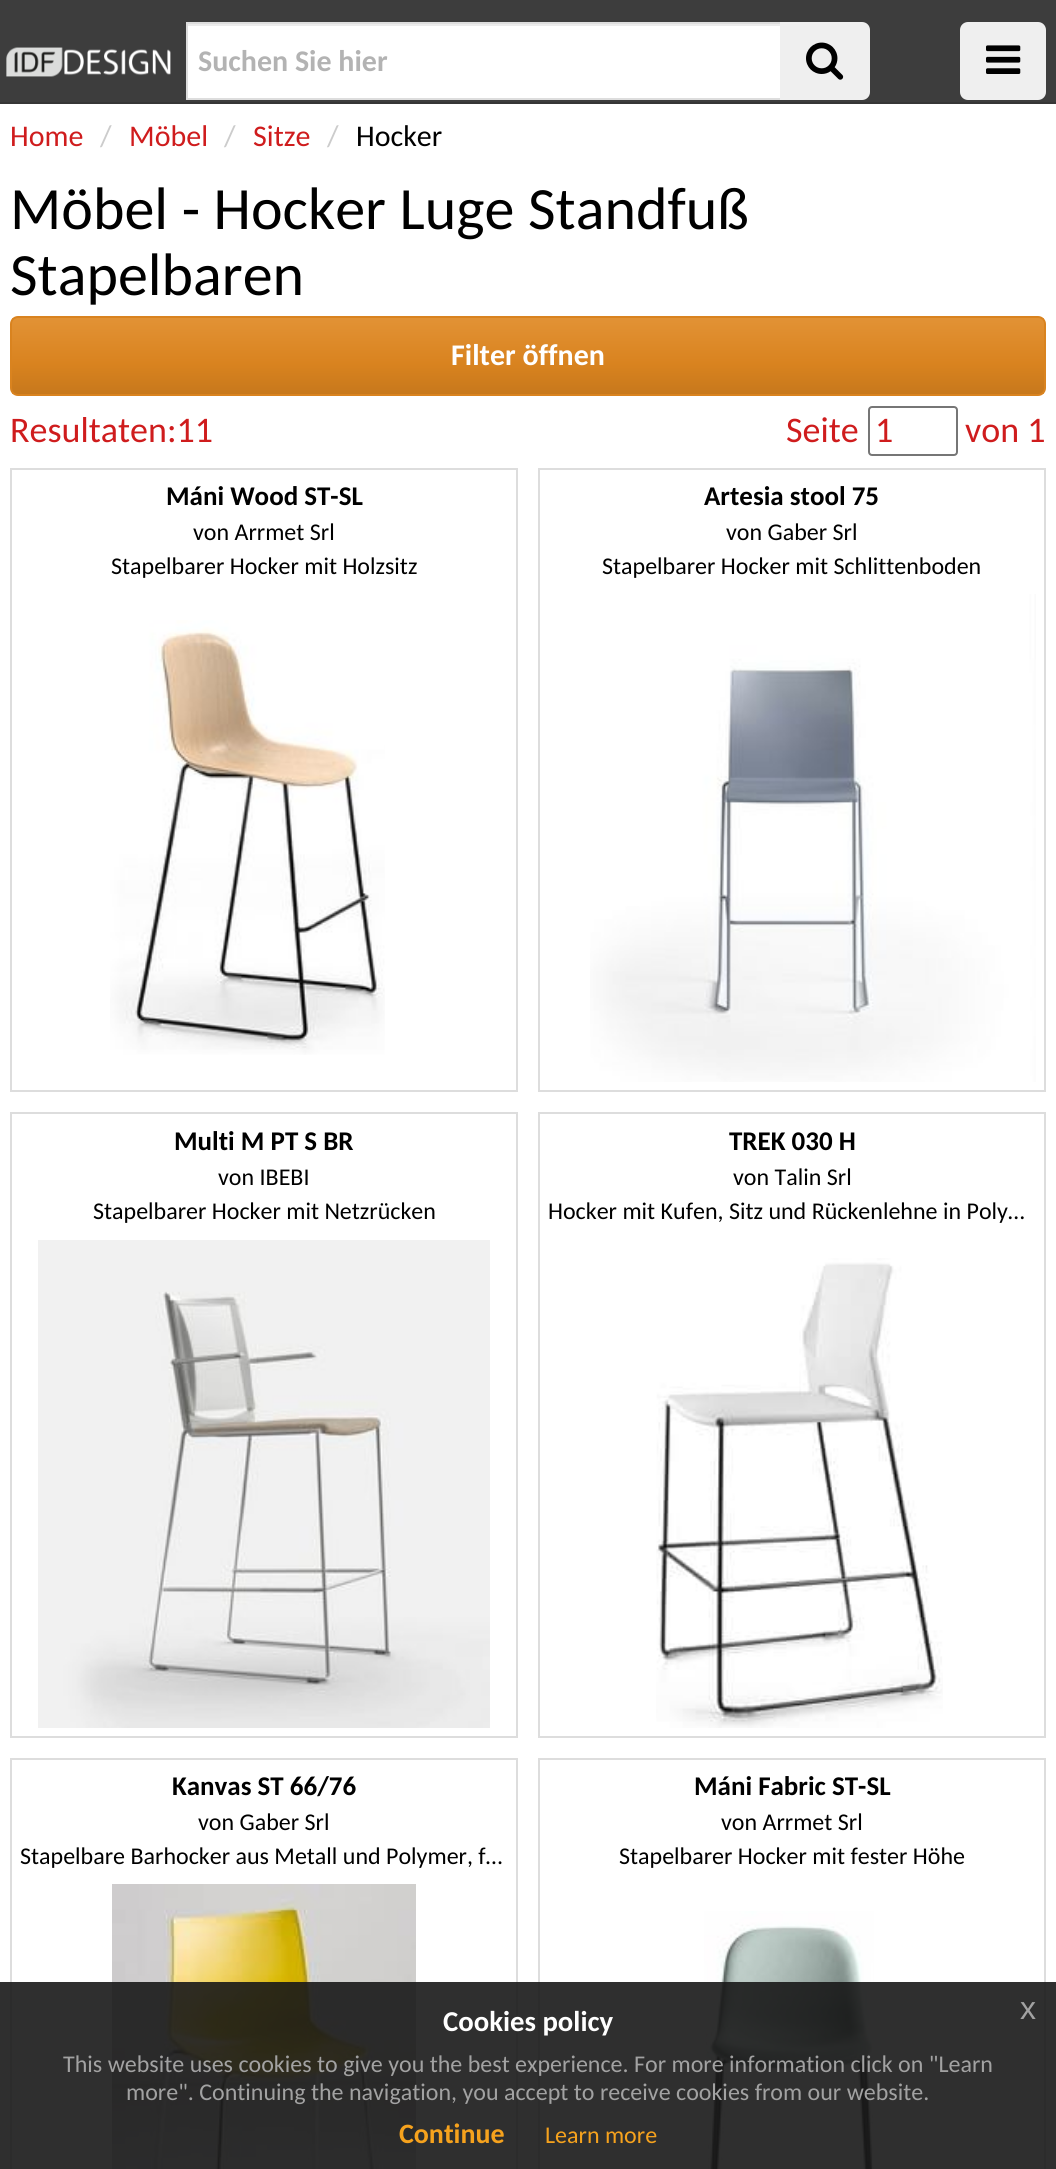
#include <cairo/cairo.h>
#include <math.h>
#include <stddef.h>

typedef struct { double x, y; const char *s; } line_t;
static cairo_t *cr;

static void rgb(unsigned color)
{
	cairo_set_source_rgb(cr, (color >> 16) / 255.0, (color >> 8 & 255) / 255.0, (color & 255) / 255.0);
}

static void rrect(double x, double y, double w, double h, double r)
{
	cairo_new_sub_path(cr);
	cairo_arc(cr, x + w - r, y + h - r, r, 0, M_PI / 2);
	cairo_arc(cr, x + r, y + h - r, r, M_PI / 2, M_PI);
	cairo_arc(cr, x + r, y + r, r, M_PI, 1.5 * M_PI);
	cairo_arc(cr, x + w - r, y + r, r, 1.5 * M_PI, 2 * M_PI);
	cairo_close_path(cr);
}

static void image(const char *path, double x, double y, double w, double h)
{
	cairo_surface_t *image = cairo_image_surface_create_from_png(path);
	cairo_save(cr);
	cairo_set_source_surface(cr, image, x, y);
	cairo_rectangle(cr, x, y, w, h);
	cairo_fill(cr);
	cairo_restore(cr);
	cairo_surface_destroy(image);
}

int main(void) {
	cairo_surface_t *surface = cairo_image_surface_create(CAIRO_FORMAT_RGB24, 1056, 2169);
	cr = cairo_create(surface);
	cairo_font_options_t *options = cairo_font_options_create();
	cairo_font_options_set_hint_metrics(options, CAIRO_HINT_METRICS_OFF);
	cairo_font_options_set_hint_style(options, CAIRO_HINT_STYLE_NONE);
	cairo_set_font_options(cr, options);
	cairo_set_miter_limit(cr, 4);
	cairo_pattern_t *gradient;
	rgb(0xffffff);
	cairo_paint(cr);
	rgb(0x3d3d3d);
	cairo_rectangle(cr, 0, 0, 1056, 102);
	cairo_fill(cr);
	rgb(0x363636);
	cairo_rectangle(cr, 0, 102, 1056, 2);
	cairo_fill(cr);
	image("img/1.png", 6, 47, 165, 30);
	rgb(0xffffff);
	cairo_rectangle(cr, 188, 26, 592, 72);
	cairo_fill(cr);
	rgb(0xececec);
	cairo_rectangle(cr, 188, 24, 592, 2);
	cairo_fill(cr);
	cairo_rectangle(cr, 187, 23, 594, 76);
	rgb(0xdddddd);
	cairo_stroke(cr);
	rgb(0xefefef);
	cairo_new_path(cr);
	cairo_move_to(cr, 780, 22);
	cairo_line_to(cr, 862, 22);
	cairo_curve_to(cr, 866.5, 22, 870, 25.5, 870, 30);
	cairo_line_to(cr, 870, 92);
	cairo_curve_to(cr, 870, 96.5, 866.5, 100, 862, 100);
	cairo_line_to(cr, 780, 100);
	cairo_close_path(cr);
	cairo_fill(cr);
	image("img/2.png", 806, 42, 38, 38);
	rrect(960, 22, 86, 78, 8);
	cairo_fill(cr);
	image("img/3.png", 986, 45, 35, 29);
	cairo_save(cr);
	rrect(10, 316, 1036, 80, 8);
	cairo_clip(cr);
	gradient = cairo_pattern_create_linear(528, 318, 528, 394);
	cairo_pattern_add_color_stop_rgba(gradient, 0, 0.886, 0.573, 0.208, 1);
	cairo_pattern_add_color_stop_rgba(gradient, 0.6, 0.851, 0.514, 0.122, 1);
	cairo_pattern_add_color_stop_rgba(gradient, 1, 0.78, 0.471, 0.11, 1);
	cairo_set_source(cr, gradient);
	cairo_pattern_destroy(gradient);
	cairo_rectangle(cr, 12, 318, 1032, 76);
	cairo_fill(cr);
	cairo_restore(cr);
	rrect(11, 317, 1034, 78, 7);
	rgb(0xd9831f);
	cairo_stroke(cr);
	rrect(869, 407, 88, 48, 3);
	rgb(0x767676);
	cairo_stroke(cr);
	cairo_rectangle(cr, 11, 469, 506, 622);
	rgb(0xdddddd);
	cairo_stroke(cr);
	image("img/4.png", 110, 620, 275, 435);
	cairo_rectangle(cr, 539, 469, 506, 622);
	cairo_stroke(cr);
	image("img/5.png", 590, 594, 446, 488);
	cairo_rectangle(cr, 11, 1113, 506, 624);
	cairo_stroke(cr);
	image("img/6.png", 38, 1240, 452, 488);
	cairo_rectangle(cr, 539, 1113, 506, 624);
	cairo_stroke(cr);
	image("img/7.png", 656, 1258, 287, 470);
	cairo_rectangle(cr, 11, 1759, 506, 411);
	cairo_stroke(cr);
	image("img/8.png", 112, 1884, 304, 285);
	cairo_rectangle(cr, 539, 1759, 506, 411);
	cairo_stroke(cr);
	image("img/9.png", 704, 1911, 170, 258);
	cairo_set_source_rgba(cr, 0.098, 0.098, 0.098, 0.9);
	cairo_rectangle(cr, 0, 1982, 1056, 187);
	cairo_fill(cr);
	cairo_select_font_face(cr, "Carlito", CAIRO_FONT_SLANT_NORMAL, CAIRO_FONT_WEIGHT_BOLD);
	cairo_set_font_size(cr, 30);
	rgb(0xb3b3b3);
	cairo_move_to(cr, 198, 71);
	cairo_show_text(cr, "Suchen Sie hier");
	cairo_select_font_face(cr, "Carlito", CAIRO_FONT_SLANT_NORMAL, CAIRO_FONT_WEIGHT_NORMAL);
	rgb(0xcf1c1d);
	cairo_move_to(cr, 10, 146);
	cairo_show_text(cr, "Home");
	rgb(0xcccccc);
	cairo_move_to(cr, 100, 146);
	cairo_show_text(cr, "/");
	rgb(0xcf1c1d);
	cairo_move_to(cr, 129, 146);
	cairo_show_text(cr, "Möbel");
	rgb(0xcccccc);
	cairo_move_to(cr, 224, 146);
	cairo_show_text(cr, "/");
	rgb(0xcf1c1d);
	cairo_move_to(cr, 253, 146);
	cairo_show_text(cr, "Sitze");
	rgb(0xcccccc);
	cairo_move_to(cr, 327, 146);
	cairo_show_text(cr, "/");
	rgb(0x000000);
	cairo_move_to(cr, 356, 146);
	cairo_show_text(cr, "Hocker");
	cairo_set_font_size(cr, 60);
	cairo_move_to(cr, 10, 229);
	cairo_show_text(cr, "Möbel - Hocker Luge Standfuß");
	cairo_move_to(cr, 10, 295);
	cairo_show_text(cr, "Stapelbaren");
	cairo_select_font_face(cr, "Carlito", CAIRO_FONT_SLANT_NORMAL, CAIRO_FONT_WEIGHT_BOLD);
	cairo_set_font_size(cr, 30);
	rgb(0xffffff);
	cairo_move_to(cr, 451, 365);
	cairo_show_text(cr, "Filter öffnen");
	cairo_select_font_face(cr, "Carlito", CAIRO_FONT_SLANT_NORMAL, CAIRO_FONT_WEIGHT_NORMAL);
	cairo_set_font_size(cr, 36);
	rgb(0xcf1c1d);
	{
		static const line_t items[] = {
			{10, 442, "Resultaten:11"},
			{786, 442, "Seite"},
			{875, 442, "1"},
			{965, 442, "von 1"},
		};
		for (size_t i = 0; i < sizeof items / sizeof *items; i++) {
			cairo_move_to(cr, items[i].x, items[i].y);
			cairo_show_text(cr, items[i].s);
		}
	}
	cairo_select_font_face(cr, "Carlito", CAIRO_FONT_SLANT_NORMAL, CAIRO_FONT_WEIGHT_BOLD);
	cairo_set_font_size(cr, 27);
	rgb(0x000000);
	cairo_move_to(cr, 166, 505);
	cairo_show_text(cr, "Máni Wood ST-SL");
	cairo_select_font_face(cr, "Carlito", CAIRO_FONT_SLANT_NORMAL, CAIRO_FONT_WEIGHT_NORMAL);
	cairo_set_font_size(cr, 24);
	cairo_move_to(cr, 193, 540);
	cairo_show_text(cr, "von Arrmet Srl");
	cairo_move_to(cr, 111, 574);
	cairo_show_text(cr, "Stapelbarer Hocker mit Holzsitz");
	cairo_select_font_face(cr, "Carlito", CAIRO_FONT_SLANT_NORMAL, CAIRO_FONT_WEIGHT_BOLD);
	cairo_set_font_size(cr, 27);
	cairo_move_to(cr, 704, 505);
	cairo_show_text(cr, "Artesia stool 75");
	cairo_select_font_face(cr, "Carlito", CAIRO_FONT_SLANT_NORMAL, CAIRO_FONT_WEIGHT_NORMAL);
	cairo_set_font_size(cr, 24);
	cairo_move_to(cr, 726, 540);
	cairo_show_text(cr, "von Gaber Srl");
	cairo_move_to(cr, 602, 574);
	cairo_show_text(cr, "Stapelbarer Hocker mit Schlittenboden");
	cairo_select_font_face(cr, "Carlito", CAIRO_FONT_SLANT_NORMAL, CAIRO_FONT_WEIGHT_BOLD);
	cairo_set_font_size(cr, 27);
	cairo_move_to(cr, 174, 1150);
	cairo_show_text(cr, "Multi M PT S BR");
	cairo_select_font_face(cr, "Carlito", CAIRO_FONT_SLANT_NORMAL, CAIRO_FONT_WEIGHT_NORMAL);
	cairo_set_font_size(cr, 24);
	cairo_move_to(cr, 218, 1185);
	cairo_show_text(cr, "von IBEBI");
	cairo_move_to(cr, 93, 1219);
	cairo_show_text(cr, "Stapelbarer Hocker mit Netzrücken");
	cairo_select_font_face(cr, "Carlito", CAIRO_FONT_SLANT_NORMAL, CAIRO_FONT_WEIGHT_BOLD);
	cairo_set_font_size(cr, 27);
	cairo_move_to(cr, 729, 1150);
	cairo_show_text(cr, "TREK 030 H");
	cairo_select_font_face(cr, "Carlito", CAIRO_FONT_SLANT_NORMAL, CAIRO_FONT_WEIGHT_NORMAL);
	cairo_set_font_size(cr, 24);
	cairo_move_to(cr, 733, 1185);
	cairo_show_text(cr, "von Talin Srl");
	cairo_move_to(cr, 548, 1219);
	cairo_show_text(cr, "Hocker mit Kufen, Sitz und Rückenlehne in Poly…");
	cairo_select_font_face(cr, "Carlito", CAIRO_FONT_SLANT_NORMAL, CAIRO_FONT_WEIGHT_BOLD);
	cairo_set_font_size(cr, 27);
	cairo_move_to(cr, 172, 1795);
	cairo_show_text(cr, "Kanvas ST 66/76");
	cairo_select_font_face(cr, "Carlito", CAIRO_FONT_SLANT_NORMAL, CAIRO_FONT_WEIGHT_NORMAL);
	cairo_set_font_size(cr, 24);
	cairo_move_to(cr, 198, 1830);
	cairo_show_text(cr, "von Gaber Srl");
	cairo_move_to(cr, 20, 1864);
	cairo_show_text(cr, "Stapelbare Barhocker aus Metall und Polymer, f…");
	cairo_select_font_face(cr, "Carlito", CAIRO_FONT_SLANT_NORMAL, CAIRO_FONT_WEIGHT_BOLD);
	cairo_set_font_size(cr, 27);
	cairo_move_to(cr, 694, 1795);
	cairo_show_text(cr, "Máni Fabric ST-SL");
	cairo_select_font_face(cr, "Carlito", CAIRO_FONT_SLANT_NORMAL, CAIRO_FONT_WEIGHT_NORMAL);
	cairo_set_font_size(cr, 24);
	cairo_move_to(cr, 721, 1830);
	cairo_show_text(cr, "von Arrmet Srl");
	cairo_move_to(cr, 619, 1864);
	cairo_show_text(cr, "Stapelbarer Hocker mit fester Höhe");
	cairo_select_font_face(cr, "Carlito", CAIRO_FONT_SLANT_NORMAL, CAIRO_FONT_WEIGHT_BOLD);
	cairo_set_font_size(cr, 28.75);
	rgb(0xffffff);
	cairo_move_to(cr, 443, 2031);
	cairo_show_text(cr, "Cookies policy");
	cairo_select_font_face(cr, "Liberation Sans", CAIRO_FONT_SLANT_NORMAL, CAIRO_FONT_WEIGHT_NORMAL);
	cairo_set_font_size(cr, 32);
	rgb(0xa2a2a2);
	cairo_move_to(cr, 1020, 2019);
	cairo_show_text(cr, "x");
	cairo_select_font_face(cr, "Carlito", CAIRO_FONT_SLANT_NORMAL, CAIRO_FONT_WEIGHT_NORMAL);
	cairo_set_font_size(cr, 24);
	cairo_move_to(cr, 63, 2072);
	cairo_show_text(cr, "This website uses cookies to give you the best experience. For more information click on \"Learn");
	cairo_move_to(cr, 126, 2100);
	cairo_show_text(cr, "more\". Continuing the navigation, you accept to receive cookies from our website.");
	cairo_select_font_face(cr, "Carlito", CAIRO_FONT_SLANT_NORMAL, CAIRO_FONT_WEIGHT_BOLD);
	cairo_set_font_size(cr, 28);
	rgb(0xf6a21d);
	cairo_move_to(cr, 399, 2143);
	cairo_show_text(cr, "Continue");
	cairo_select_font_face(cr, "Carlito", CAIRO_FONT_SLANT_NORMAL, CAIRO_FONT_WEIGHT_NORMAL);
	cairo_set_font_size(cr, 24);
	cairo_move_to(cr, 545, 2143);
	cairo_show_text(cr, "Learn more");
	cairo_surface_write_to_png(surface, "page.png");
	cairo_font_options_destroy(options);
	cairo_destroy(cr);
	cairo_surface_destroy(surface);
	return 0;
}
